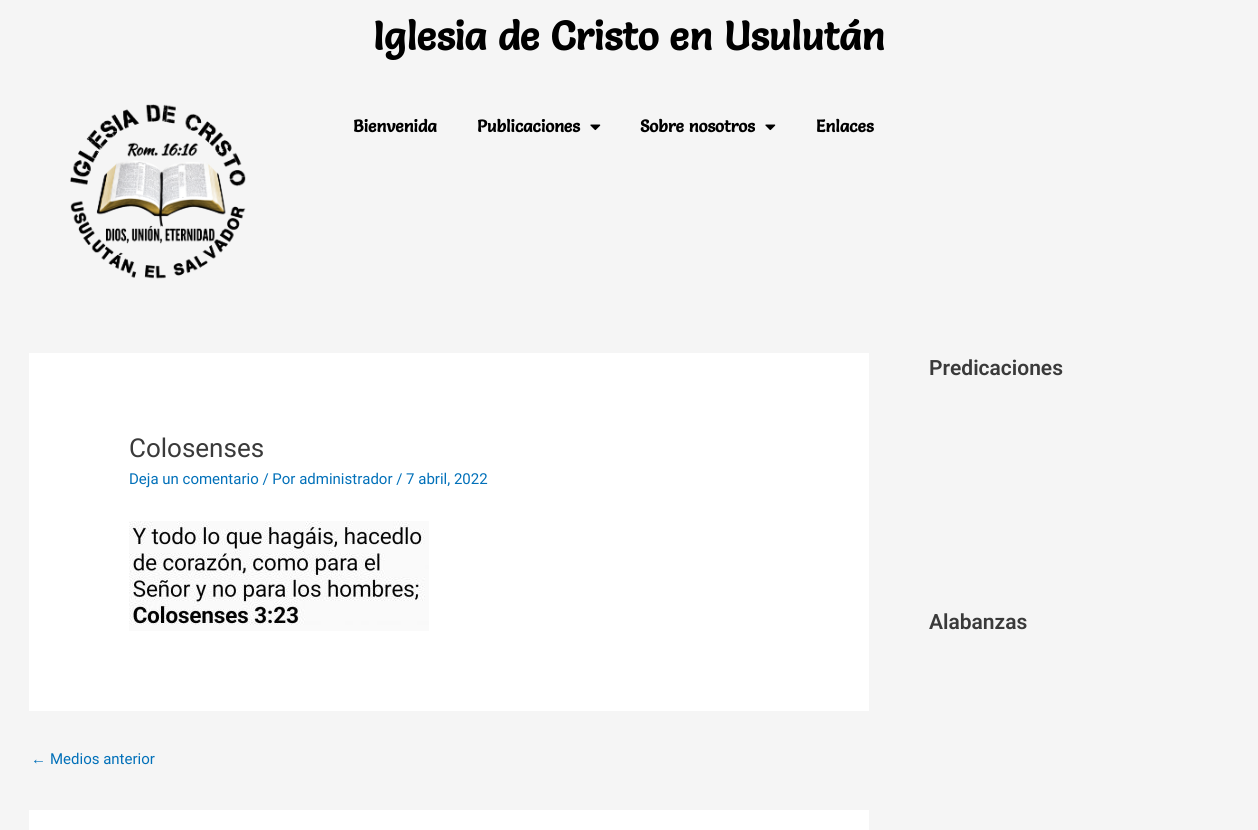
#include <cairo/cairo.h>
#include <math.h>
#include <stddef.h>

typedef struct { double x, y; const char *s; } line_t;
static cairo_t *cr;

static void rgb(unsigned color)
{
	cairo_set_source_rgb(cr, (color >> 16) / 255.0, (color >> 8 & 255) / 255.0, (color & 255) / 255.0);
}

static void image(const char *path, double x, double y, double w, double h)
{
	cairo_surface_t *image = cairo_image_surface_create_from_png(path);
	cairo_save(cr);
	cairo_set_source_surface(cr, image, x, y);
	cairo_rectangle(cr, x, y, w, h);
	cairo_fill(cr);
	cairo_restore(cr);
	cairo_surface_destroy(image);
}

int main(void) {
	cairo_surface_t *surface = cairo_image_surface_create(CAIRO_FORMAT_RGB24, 1258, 830);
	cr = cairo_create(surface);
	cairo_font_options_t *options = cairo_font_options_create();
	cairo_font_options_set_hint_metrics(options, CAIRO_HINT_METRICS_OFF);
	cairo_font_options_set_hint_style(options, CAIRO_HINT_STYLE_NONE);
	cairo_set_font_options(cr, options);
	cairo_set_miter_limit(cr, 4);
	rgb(0xf5f5f5);
	cairo_paint(cr);
	image("img/1.png", 70, 104, 176, 175);
	image("img/2.png", 590, 124, 11, 7);
	image("img/2.png", 765, 124, 11, 7);
	rgb(0xffffff);
	cairo_rectangle(cr, 29, 353, 840, 358);
	cairo_fill(cr);
	image("img/3.png", 129, 521, 300, 110);
	cairo_rectangle(cr, 29, 810, 840, 20);
	cairo_fill(cr);
	cairo_select_font_face(cr, "Salsa", CAIRO_FONT_SLANT_NORMAL, CAIRO_FONT_WEIGHT_BOLD);
	cairo_set_font_size(cr, 40);
	rgb(0x000000);
	cairo_move_to(cr, 373, 50);
	cairo_show_text(cr, "Iglesia de Cristo en Usulután");
	cairo_set_font_size(cr, 17);
	{
		static const line_t items[] = {
			{353, 132, "Bienvenida"},
			{477, 132, "Publicaciones"},
			{640, 132, "Sobre nosotros"},
			{816, 132, "Enlaces"},
		};
		for (size_t i = 0; i < sizeof items / sizeof *items; i++) {
			cairo_move_to(cr, items[i].x, items[i].y);
			cairo_show_text(cr, items[i].s);
		}
	}
	cairo_select_font_face(cr, "Roboto", CAIRO_FONT_SLANT_NORMAL, CAIRO_FONT_WEIGHT_NORMAL);
	cairo_set_font_size(cr, 26);
	rgb(0x3a3a3a);
	cairo_move_to(cr, 129, 457);
	cairo_show_text(cr, "Colosenses");
	cairo_set_font_size(cr, 15);
	rgb(0x0170b9);
	cairo_move_to(cr, 129, 484);
	cairo_show_text(cr, "Deja un comentario / Por administrador / 7 abril, 2022");
	cairo_select_font_face(cr, "Liberation Sans", CAIRO_FONT_SLANT_NORMAL, CAIRO_FONT_WEIGHT_NORMAL);
	cairo_move_to(cr, 31, 764);
	cairo_show_text(cr, "←");
	cairo_select_font_face(cr, "Roboto", CAIRO_FONT_SLANT_NORMAL, CAIRO_FONT_WEIGHT_NORMAL);
	cairo_move_to(cr, 50, 764);
	cairo_show_text(cr, "Medios anterior");
	cairo_select_font_face(cr, "Roboto SemiBold", CAIRO_FONT_SLANT_NORMAL, CAIRO_FONT_WEIGHT_NORMAL);
	cairo_set_font_size(cr, 21);
	rgb(0x3a3a3a);
	cairo_move_to(cr, 929, 375);
	cairo_show_text(cr, "Predicaciones");
	cairo_move_to(cr, 929, 629);
	cairo_show_text(cr, "Alabanzas");
	cairo_surface_write_to_png(surface, "page.png");
	cairo_font_options_destroy(options);
	cairo_destroy(cr);
	cairo_surface_destroy(surface);
	return 0;
}
